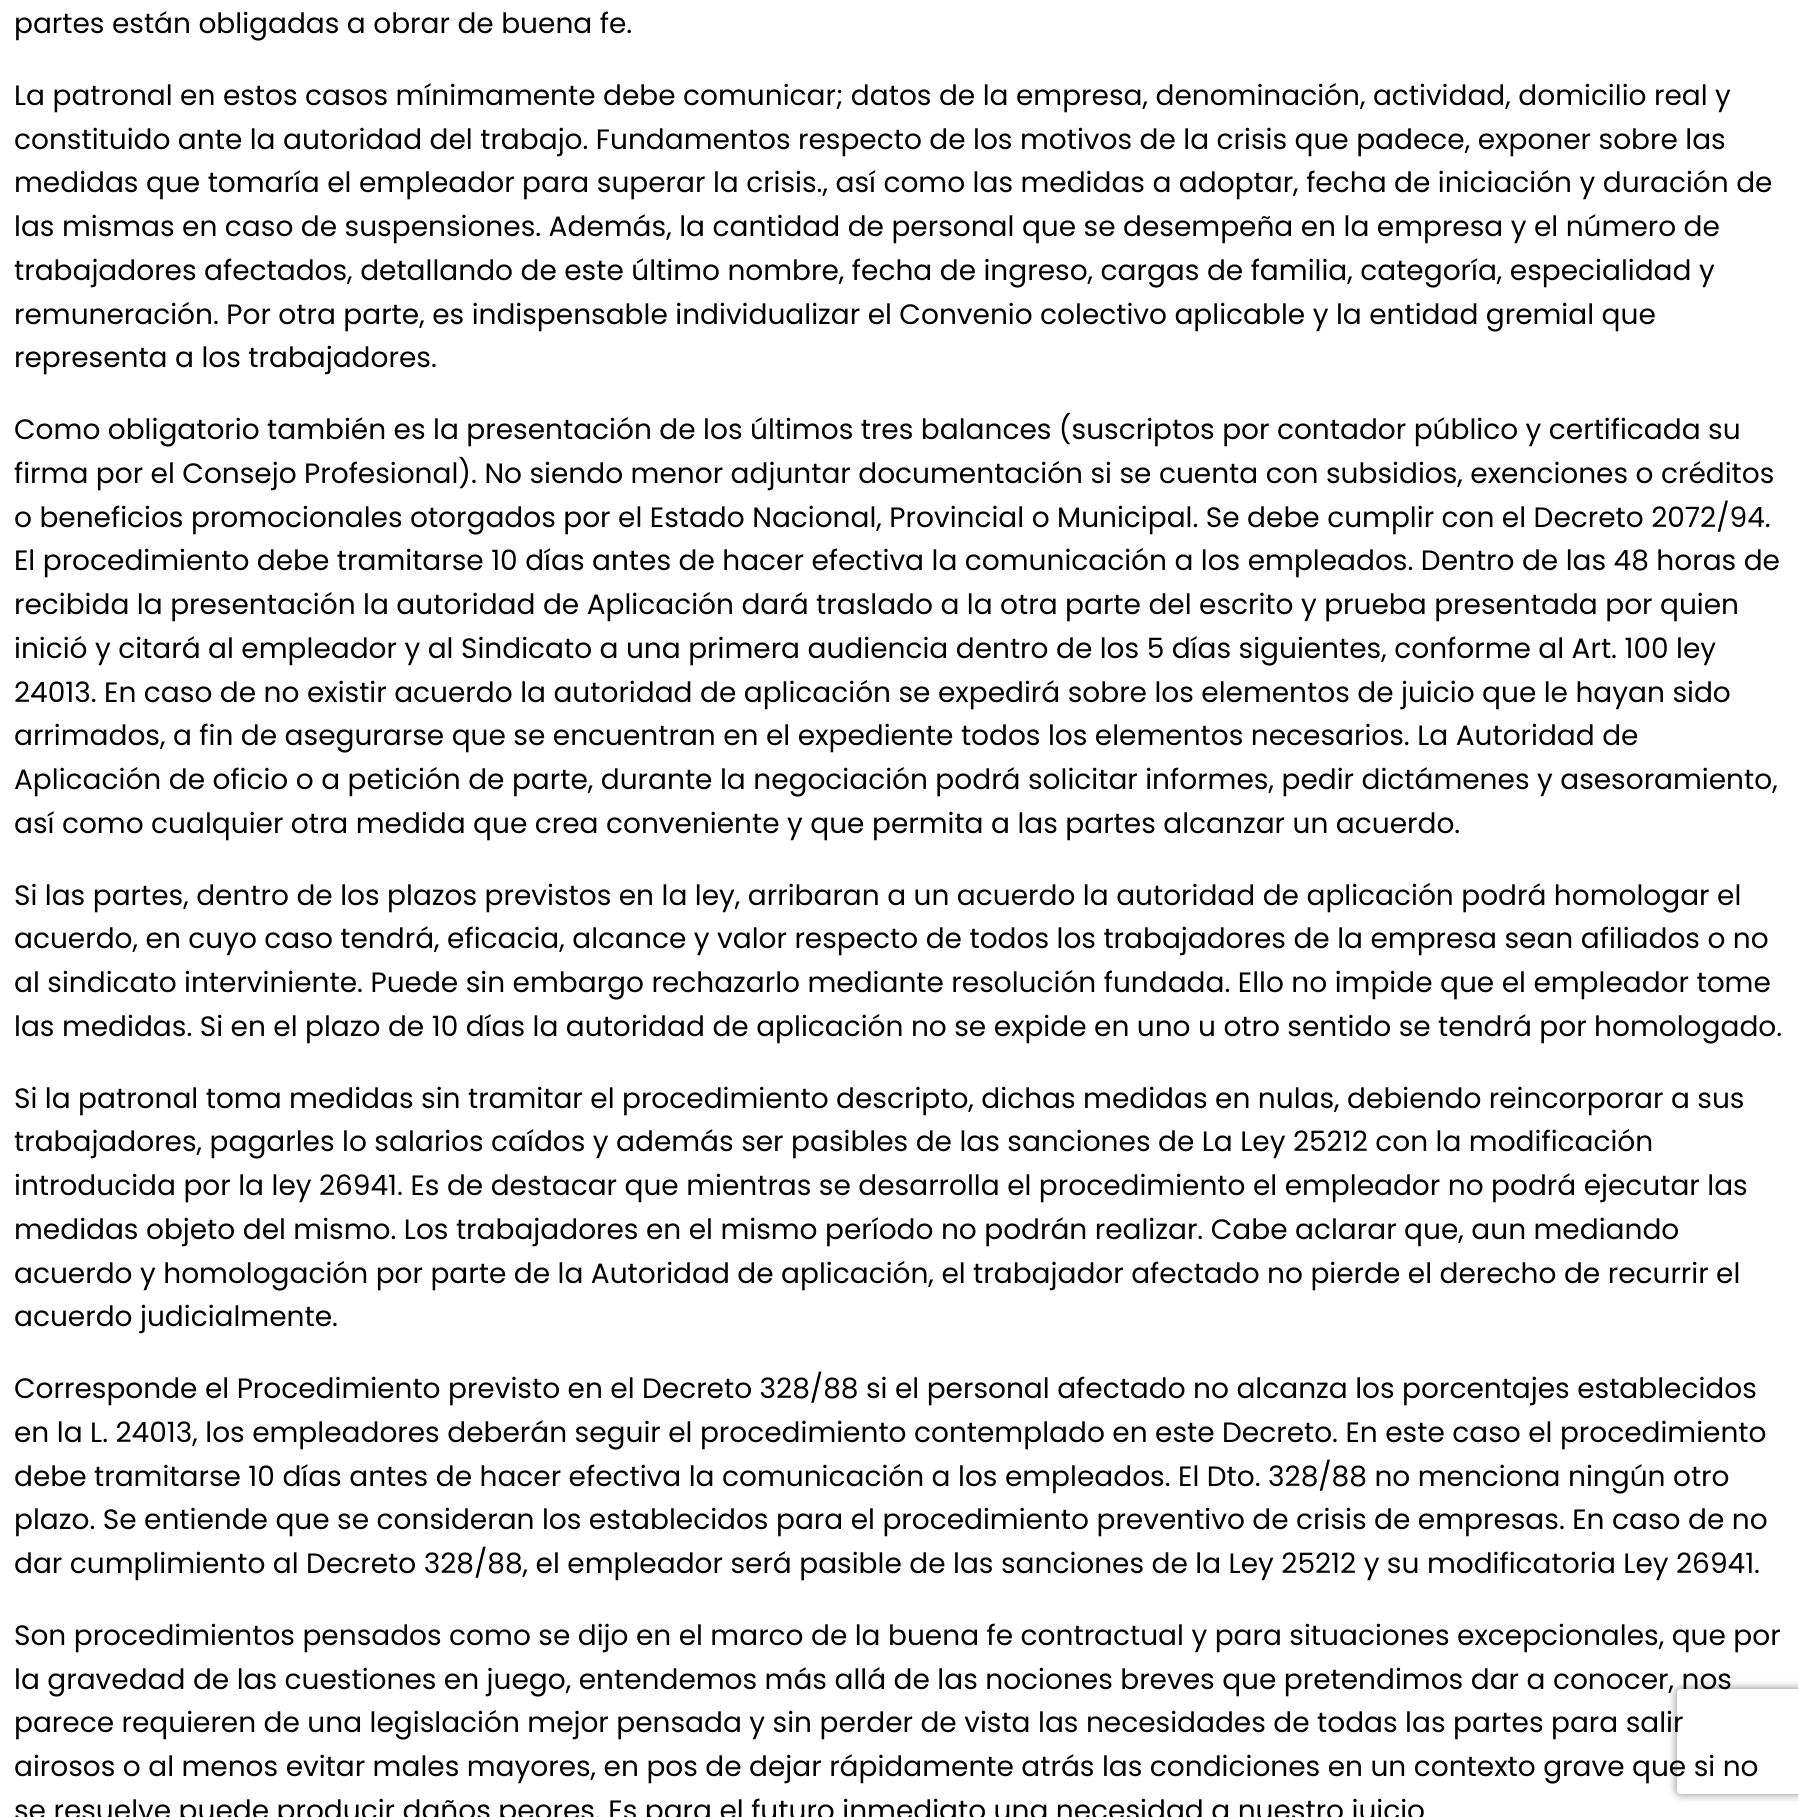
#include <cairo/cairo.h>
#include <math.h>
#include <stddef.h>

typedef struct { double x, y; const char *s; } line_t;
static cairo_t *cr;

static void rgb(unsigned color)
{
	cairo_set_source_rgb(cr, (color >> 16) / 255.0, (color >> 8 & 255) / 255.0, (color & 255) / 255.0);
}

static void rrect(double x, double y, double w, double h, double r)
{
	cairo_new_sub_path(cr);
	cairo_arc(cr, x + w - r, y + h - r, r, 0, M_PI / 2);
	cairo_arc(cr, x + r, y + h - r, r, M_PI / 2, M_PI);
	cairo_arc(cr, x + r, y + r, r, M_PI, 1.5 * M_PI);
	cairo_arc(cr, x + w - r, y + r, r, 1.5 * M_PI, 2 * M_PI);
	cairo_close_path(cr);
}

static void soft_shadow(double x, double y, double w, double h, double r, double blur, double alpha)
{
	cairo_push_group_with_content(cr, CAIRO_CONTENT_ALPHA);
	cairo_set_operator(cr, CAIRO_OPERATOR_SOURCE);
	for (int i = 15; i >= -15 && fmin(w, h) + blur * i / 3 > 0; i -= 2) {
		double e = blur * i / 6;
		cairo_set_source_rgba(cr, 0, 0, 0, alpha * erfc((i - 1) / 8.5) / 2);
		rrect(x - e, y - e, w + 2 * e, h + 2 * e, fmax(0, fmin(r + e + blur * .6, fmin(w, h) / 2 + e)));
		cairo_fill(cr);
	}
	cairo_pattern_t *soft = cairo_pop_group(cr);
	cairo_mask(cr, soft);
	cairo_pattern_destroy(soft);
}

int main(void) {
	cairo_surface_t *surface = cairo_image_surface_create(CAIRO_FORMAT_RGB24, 1798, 1817);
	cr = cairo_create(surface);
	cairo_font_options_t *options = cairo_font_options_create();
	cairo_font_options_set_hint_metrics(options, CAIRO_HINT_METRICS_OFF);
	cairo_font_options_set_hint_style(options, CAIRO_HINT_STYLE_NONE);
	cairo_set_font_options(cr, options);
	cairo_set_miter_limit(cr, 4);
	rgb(0xffffff);
	cairo_paint(cr);
	cairo_save(cr);
	cairo_set_fill_rule(cr, CAIRO_FILL_RULE_EVEN_ODD);
	cairo_new_path(cr);
	cairo_move_to(cr, 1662, 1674);
	cairo_line_to(cr, 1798, 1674);
	cairo_line_to(cr, 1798, 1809);
	cairo_line_to(cr, 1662, 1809);
	cairo_close_path(cr);
	cairo_move_to(cr, 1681, 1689);
	cairo_line_to(cr, 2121, 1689);
	cairo_curve_to(cr, 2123, 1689, 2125, 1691, 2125, 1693);
	cairo_line_to(cr, 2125, 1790);
	cairo_curve_to(cr, 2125, 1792, 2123, 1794, 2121, 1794);
	cairo_line_to(cr, 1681, 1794);
	cairo_curve_to(cr, 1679, 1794, 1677, 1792, 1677, 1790);
	cairo_line_to(cr, 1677, 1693);
	cairo_curve_to(cr, 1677, 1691, 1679, 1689, 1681, 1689);
	cairo_close_path(cr);
	cairo_clip(cr);
	rgb(0x808080);
	soft_shadow(1677, 1689, 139, 105, 4, 4.5, 1);
	cairo_restore(cr);
	cairo_select_font_face(cr, "Poppins", CAIRO_FONT_SLANT_NORMAL, CAIRO_FONT_WEIGHT_NORMAL);
	cairo_set_font_size(cr, 28);
	rgb(0x000000);
	{
		static const line_t items[] = {
			{14, 33, "partes están obligadas a obrar de buena fe."},
			{14, 105, "La patronal en estos casos mínimamente debe comunicar; datos de la empresa, denominación, actividad, domicilio real y"},
			{14, 149, "constituido ante la autoridad del trabajo. Fundamentos respecto de los motivos de la crisis que padece, exponer sobre las"},
			{14, 192, "medidas que tomaría el empleador para superar la crisis., así como las medidas a adoptar, fecha de iniciación y duración de"},
			{14, 236, "las mismas en caso de suspensiones. Además, la cantidad de personal que se desempeña en la empresa y el número de"},
			{14, 280, "trabajadores afectados, detallando de este último nombre, fecha de ingreso, cargas de familia, categoría, especialidad y"},
			{14, 324, "remuneración. Por otra parte, es indispensable individualizar el Convenio colectivo aplicable y la entidad gremial que"},
			{14, 367, "representa a los trabajadores."},
			{14, 439, "Como obligatorio también es la presentación de los últimos tres balances (suscriptos por contador público y certificada su"},
			{14, 483, "firma por el Consejo Profesional). No siendo menor adjuntar documentación si se cuenta con subsidios, exenciones o créditos"},
			{14, 527, "o beneficios promocionales otorgados por el Estado Nacional, Provincial o Municipal. Se debe cumplir con el Decreto 2072/94."},
			{14, 570, "El procedimiento debe tramitarse 10 días antes de hacer efectiva la comunicación a los empleados. Dentro de las 48 horas de"},
			{14, 614, "recibida la presentación la autoridad de Aplicación dará traslado a la otra parte del escrito y prueba presentada por quien"},
			{14, 658, "inició y citará al empleador y al Sindicato a una primera audiencia dentro de los 5 días siguientes, conforme al Art. 100 ley"},
			{14, 702, "24013. En caso de no existir acuerdo la autoridad de aplicación se expedirá sobre los elementos de juicio que le hayan sido"},
			{14, 745, "arrimados, a fin de asegurarse que se encuentran en el expediente todos los elementos necesarios. La Autoridad de"},
			{14, 789, "Aplicación de oficio o a petición de parte, durante la negociación podrá solicitar informes, pedir dictámenes y asesoramiento,"},
			{14, 833, "así como cualquier otra medida que crea conveniente y que permita a las partes alcanzar un acuerdo."},
			{14, 905, "Si las partes, dentro de los plazos previstos en la ley, arribaran a un acuerdo la autoridad de aplicación podrá homologar el"},
			{14, 948, "acuerdo, en cuyo caso tendrá, eficacia, alcance y valor respecto de todos los trabajadores de la empresa sean afiliados o no"},
			{14, 992, "al sindicato interviniente. Puede sin embargo rechazarlo mediante resolución fundada. Ello no impide que el empleador tome"},
			{14, 1036, "las medidas. Si en el plazo de 10 días la autoridad de aplicación no se expide en uno u otro sentido se tendrá por homologado."},
			{14, 1108, "Si la patronal toma medidas sin tramitar el procedimiento descripto, dichas medidas en nulas, debiendo reincorporar a sus"},
			{14, 1151, "trabajadores, pagarles lo salarios caídos y además ser pasibles de las sanciones de La Ley 25212 con la modificación"},
			{14, 1195, "introducida por la ley 26941. Es de destacar que mientras se desarrolla el procedimiento el empleador no podrá ejecutar las"},
			{14, 1239, "medidas objeto del mismo. Los trabajadores en el mismo período no podrán realizar. Cabe aclarar que, aun mediando"},
			{14, 1283, "acuerdo y homologación por parte de la Autoridad de aplicación, el trabajador afectado no pierde el derecho de recurrir el"},
			{14, 1326, "acuerdo judicialmente."},
			{14, 1398, "Corresponde el Procedimiento previsto en el Decreto 328/88 si el personal afectado no alcanza los porcentajes establecidos"},
			{14, 1442, "en la L. 24013, los empleadores deberán seguir el procedimiento contemplado en este Decreto. En este caso el procedimiento"},
			{14, 1486, "debe tramitarse 10 días antes de hacer efectiva la comunicación a los empleados. El Dto. 328/88 no menciona ningún otro"},
			{14, 1529, "plazo. Se entiende que se consideran los establecidos para el procedimiento preventivo de crisis de empresas. En caso de no"},
			{14, 1573, "dar cumplimiento al Decreto 328/88, el empleador será pasible de las sanciones de la Ley 25212 y su modificatoria Ley 26941."},
			{14, 1645, "Son procedimientos pensados como se dijo en el marco de la buena fe contractual y para situaciones excepcionales, que por"},
			{14, 1689, "la gravedad de las cuestiones en juego, entendemos más allá de las nociones breves que pretendimos dar a conocer, nos"},
			{14, 1732, "parece requieren de una legislación mejor pensada y sin perder de vista las necesidades de todas las partes para salir"},
			{14, 1776, "airosos o al menos evitar males mayores, en pos de dejar rápidamente atrás las condiciones en un contexto grave que si no"},
			{14, 1820, "se resuelve puede producir daños peores. Es para el futuro inmediato una necesidad a nuestro juicio"},
		};
		for (size_t i = 0; i < sizeof items / sizeof *items; i++) {
			cairo_move_to(cr, items[i].x, items[i].y);
			cairo_show_text(cr, items[i].s);
		}
	}
	cairo_surface_write_to_png(surface, "page.png");
	cairo_font_options_destroy(options);
	cairo_destroy(cr);
	cairo_surface_destroy(surface);
	return 0;
}
